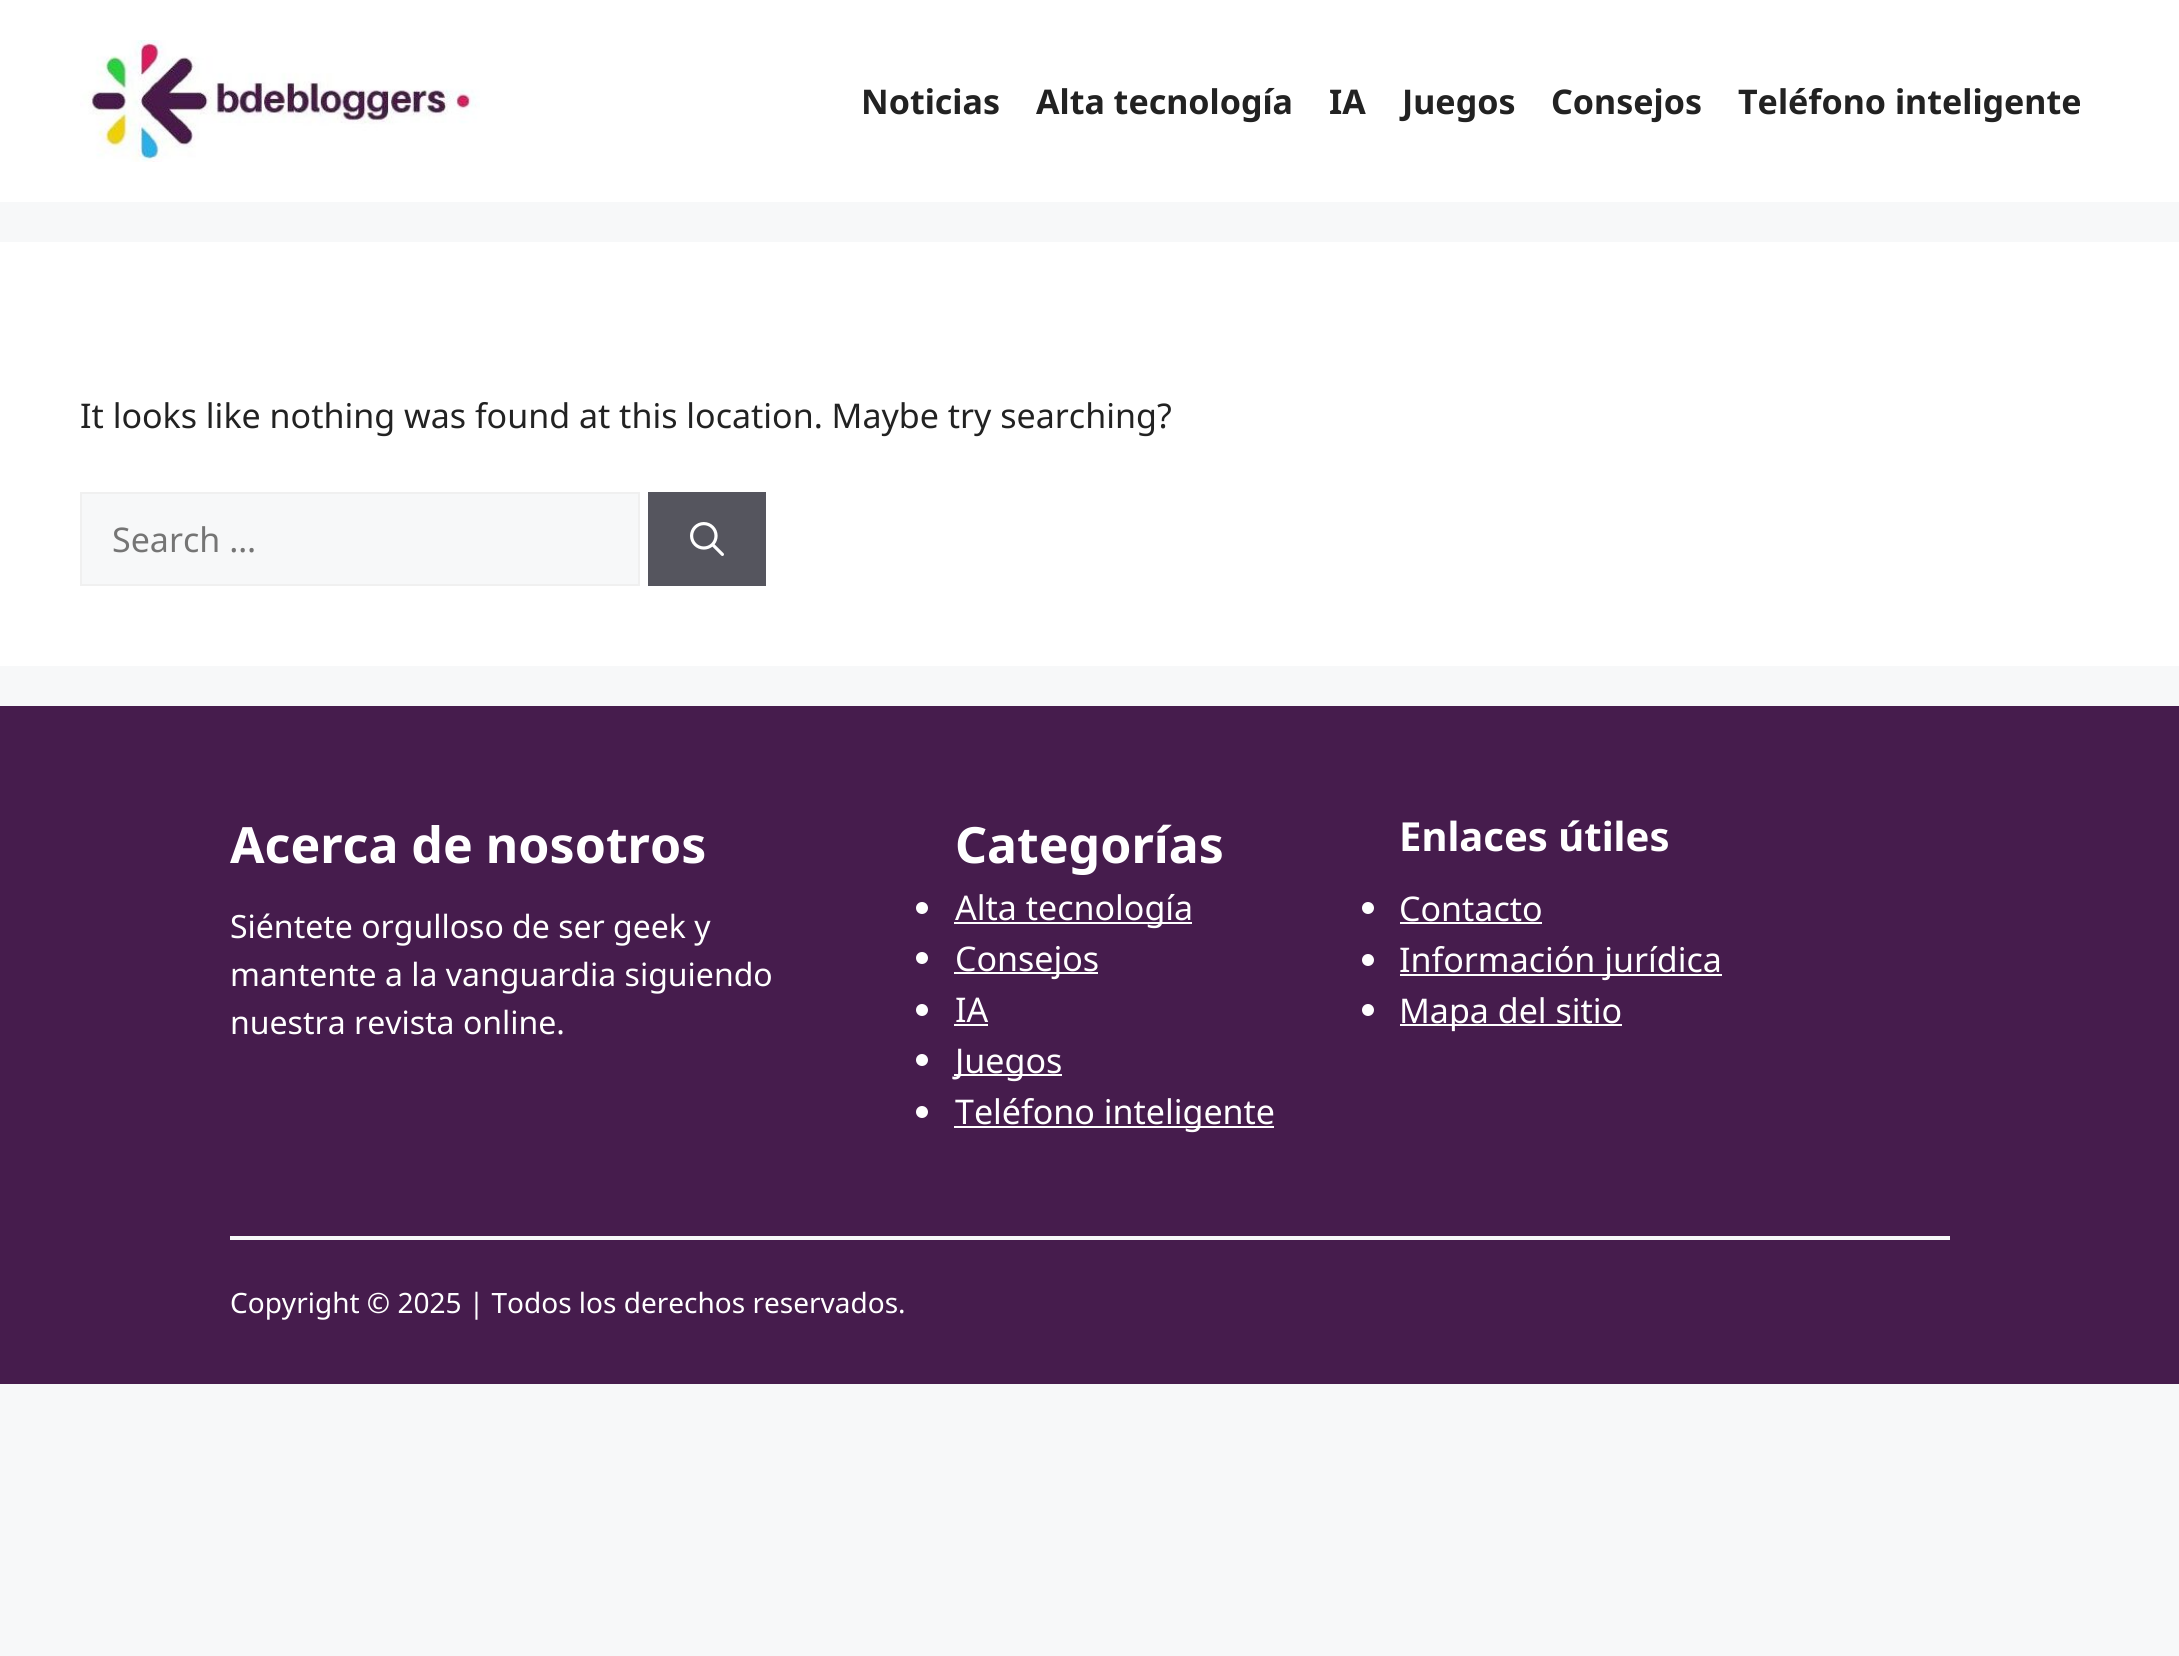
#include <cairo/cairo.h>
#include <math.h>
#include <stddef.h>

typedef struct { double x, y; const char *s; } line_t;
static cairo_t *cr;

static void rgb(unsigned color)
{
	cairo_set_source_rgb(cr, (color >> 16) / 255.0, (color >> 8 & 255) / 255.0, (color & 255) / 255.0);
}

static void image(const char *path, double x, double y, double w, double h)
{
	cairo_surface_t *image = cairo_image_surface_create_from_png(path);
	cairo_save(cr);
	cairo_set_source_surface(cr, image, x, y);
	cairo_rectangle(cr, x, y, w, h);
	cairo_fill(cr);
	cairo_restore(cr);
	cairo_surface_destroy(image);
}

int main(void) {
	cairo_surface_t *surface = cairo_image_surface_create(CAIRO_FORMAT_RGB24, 2179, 1656);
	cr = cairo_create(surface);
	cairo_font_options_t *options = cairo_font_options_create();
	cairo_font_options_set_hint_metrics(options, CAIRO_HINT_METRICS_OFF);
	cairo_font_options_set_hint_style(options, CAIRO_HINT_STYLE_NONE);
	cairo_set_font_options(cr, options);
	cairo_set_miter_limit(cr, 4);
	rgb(0xf7f8f9);
	cairo_paint(cr);
	rgb(0xffffff);
	cairo_rectangle(cr, 0, 0, 2179, 202);
	cairo_fill(cr);
	image("img/1.png", 80, 40, 400, 122);
	cairo_rectangle(cr, 0, 242, 2179, 424);
	cairo_fill(cr);
	rgb(0xf7f8f9);
	cairo_rectangle(cr, 81, 493, 558, 92);
	cairo_fill_preserve(cr);
	rgb(0xf0f0f0);
	cairo_stroke(cr);
	rgb(0x55555e);
	cairo_rectangle(cr, 648, 492, 118, 94);
	cairo_fill(cr);
	image("img/2.png", 690, 522, 34, 34);
	rgb(0x461c4d);
	cairo_rectangle(cr, 0, 706, 2179, 678);
	cairo_fill(cr);
	rgb(0xffffff);
	cairo_arc(cr, 922, 908, 6, 0, 2 * M_PI);
	cairo_fill(cr);
	cairo_rectangle(cr, 954, 922, 238, 2);
	cairo_fill(cr);
	cairo_arc(cr, 922, 958, 6, 0, 2 * M_PI);
	cairo_fill(cr);
	cairo_rectangle(cr, 954, 972, 144, 2);
	cairo_fill(cr);
	cairo_arc(cr, 922, 1010, 6, 0, 2 * M_PI);
	cairo_fill(cr);
	cairo_rectangle(cr, 954, 1024, 34, 2);
	cairo_fill(cr);
	cairo_arc(cr, 922, 1060, 6, 0, 2 * M_PI);
	cairo_fill(cr);
	cairo_rectangle(cr, 954, 1074, 108, 2);
	cairo_fill(cr);
	cairo_arc(cr, 922, 1112, 6, 0, 2 * M_PI);
	cairo_fill(cr);
	cairo_rectangle(cr, 954, 1126, 320, 2);
	cairo_fill(cr);
	cairo_arc(cr, 1368, 908, 6, 0, 2 * M_PI);
	cairo_fill(cr);
	cairo_rectangle(cr, 1400, 922, 142, 2);
	cairo_fill(cr);
	cairo_arc(cr, 1368, 960, 6, 0, 2 * M_PI);
	cairo_fill(cr);
	cairo_rectangle(cr, 1400, 974, 322, 2);
	cairo_fill(cr);
	cairo_arc(cr, 1368, 1010, 6, 0, 2 * M_PI);
	cairo_fill(cr);
	cairo_rectangle(cr, 1400, 1024, 222, 2);
	cairo_fill(cr);
	rgb(0xf7f8f9);
	cairo_rectangle(cr, 230, 1236, 1720, 4);
	cairo_fill(cr);
	cairo_select_font_face(cr, "Noto Sans", CAIRO_FONT_SLANT_NORMAL, CAIRO_FONT_WEIGHT_BOLD);
	cairo_set_font_size(cr, 34);
	rgb(0x222222);
	{
		static const line_t items[] = {
			{861, 114, "Noticias"},
			{1036, 114, "Alta tecnología"},
			{1329, 114, "IA"},
			{1402, 114, "Juegos"},
			{1551, 114, "Consejos"},
			{1738, 114, "Teléfono inteligente"},
		};
		for (size_t i = 0; i < sizeof items / sizeof *items; i++) {
			cairo_move_to(cr, items[i].x, items[i].y);
			cairo_show_text(cr, items[i].s);
		}
	}
	cairo_select_font_face(cr, "Noto Sans", CAIRO_FONT_SLANT_NORMAL, CAIRO_FONT_WEIGHT_NORMAL);
	cairo_move_to(cr, 80, 428);
	cairo_show_text(cr, "It looks like nothing was found at this location. Maybe try searching?");
	rgb(0x757575);
	cairo_move_to(cr, 112, 552);
	cairo_show_text(cr, "Search …");
	cairo_select_font_face(cr, "Noto Sans", CAIRO_FONT_SLANT_NORMAL, CAIRO_FONT_WEIGHT_BOLD);
	cairo_set_font_size(cr, 50);
	rgb(0xffffff);
	cairo_move_to(cr, 230, 863);
	cairo_show_text(cr, "Acerca de nosotros");
	cairo_select_font_face(cr, "Noto Sans", CAIRO_FONT_SLANT_NORMAL, CAIRO_FONT_WEIGHT_NORMAL);
	cairo_set_font_size(cr, 32);
	{
		static const line_t items[] = {
			{230, 938, "Siéntete orgulloso de ser geek y"},
			{230, 986, "mantente a la vanguardia siguiendo"},
			{230, 1034, "nuestra revista online."},
		};
		for (size_t i = 0; i < sizeof items / sizeof *items; i++) {
			cairo_move_to(cr, items[i].x, items[i].y);
			cairo_show_text(cr, items[i].s);
		}
	}
	cairo_select_font_face(cr, "Noto Sans", CAIRO_FONT_SLANT_NORMAL, CAIRO_FONT_WEIGHT_BOLD);
	cairo_set_font_size(cr, 50);
	cairo_move_to(cr, 955, 863);
	cairo_show_text(cr, "Categorías");
	cairo_select_font_face(cr, "Noto Sans", CAIRO_FONT_SLANT_NORMAL, CAIRO_FONT_WEIGHT_NORMAL);
	cairo_set_font_size(cr, 34);
	{
		static const line_t items[] = {
			{955, 920, "Alta tecnología"},
			{955, 971, "Consejos"},
			{955, 1022, "IA"},
			{955, 1073, "Juegos"},
			{955, 1124, "Teléfono inteligente"},
		};
		for (size_t i = 0; i < sizeof items / sizeof *items; i++) {
			cairo_move_to(cr, items[i].x, items[i].y);
			cairo_show_text(cr, items[i].s);
		}
	}
	cairo_select_font_face(cr, "Noto Sans", CAIRO_FONT_SLANT_NORMAL, CAIRO_FONT_WEIGHT_BOLD);
	cairo_set_font_size(cr, 40);
	cairo_move_to(cr, 1399, 851);
	cairo_show_text(cr, "Enlaces útiles");
	cairo_select_font_face(cr, "Noto Sans", CAIRO_FONT_SLANT_NORMAL, CAIRO_FONT_WEIGHT_NORMAL);
	cairo_set_font_size(cr, 34);
	{
		static const line_t items[] = {
			{1399, 921, "Contacto"},
			{1399, 972, "Información jurídica"},
			{1399, 1023, "Mapa del sitio"},
		};
		for (size_t i = 0; i < sizeof items / sizeof *items; i++) {
			cairo_move_to(cr, items[i].x, items[i].y);
			cairo_show_text(cr, items[i].s);
		}
	}
	cairo_set_font_size(cr, 28);
	cairo_move_to(cr, 230, 1313);
	cairo_show_text(cr, "Copyright © 2025 | Todos los derechos reservados.");
	cairo_surface_write_to_png(surface, "page.png");
	cairo_font_options_destroy(options);
	cairo_destroy(cr);
	cairo_surface_destroy(surface);
	return 0;
}
